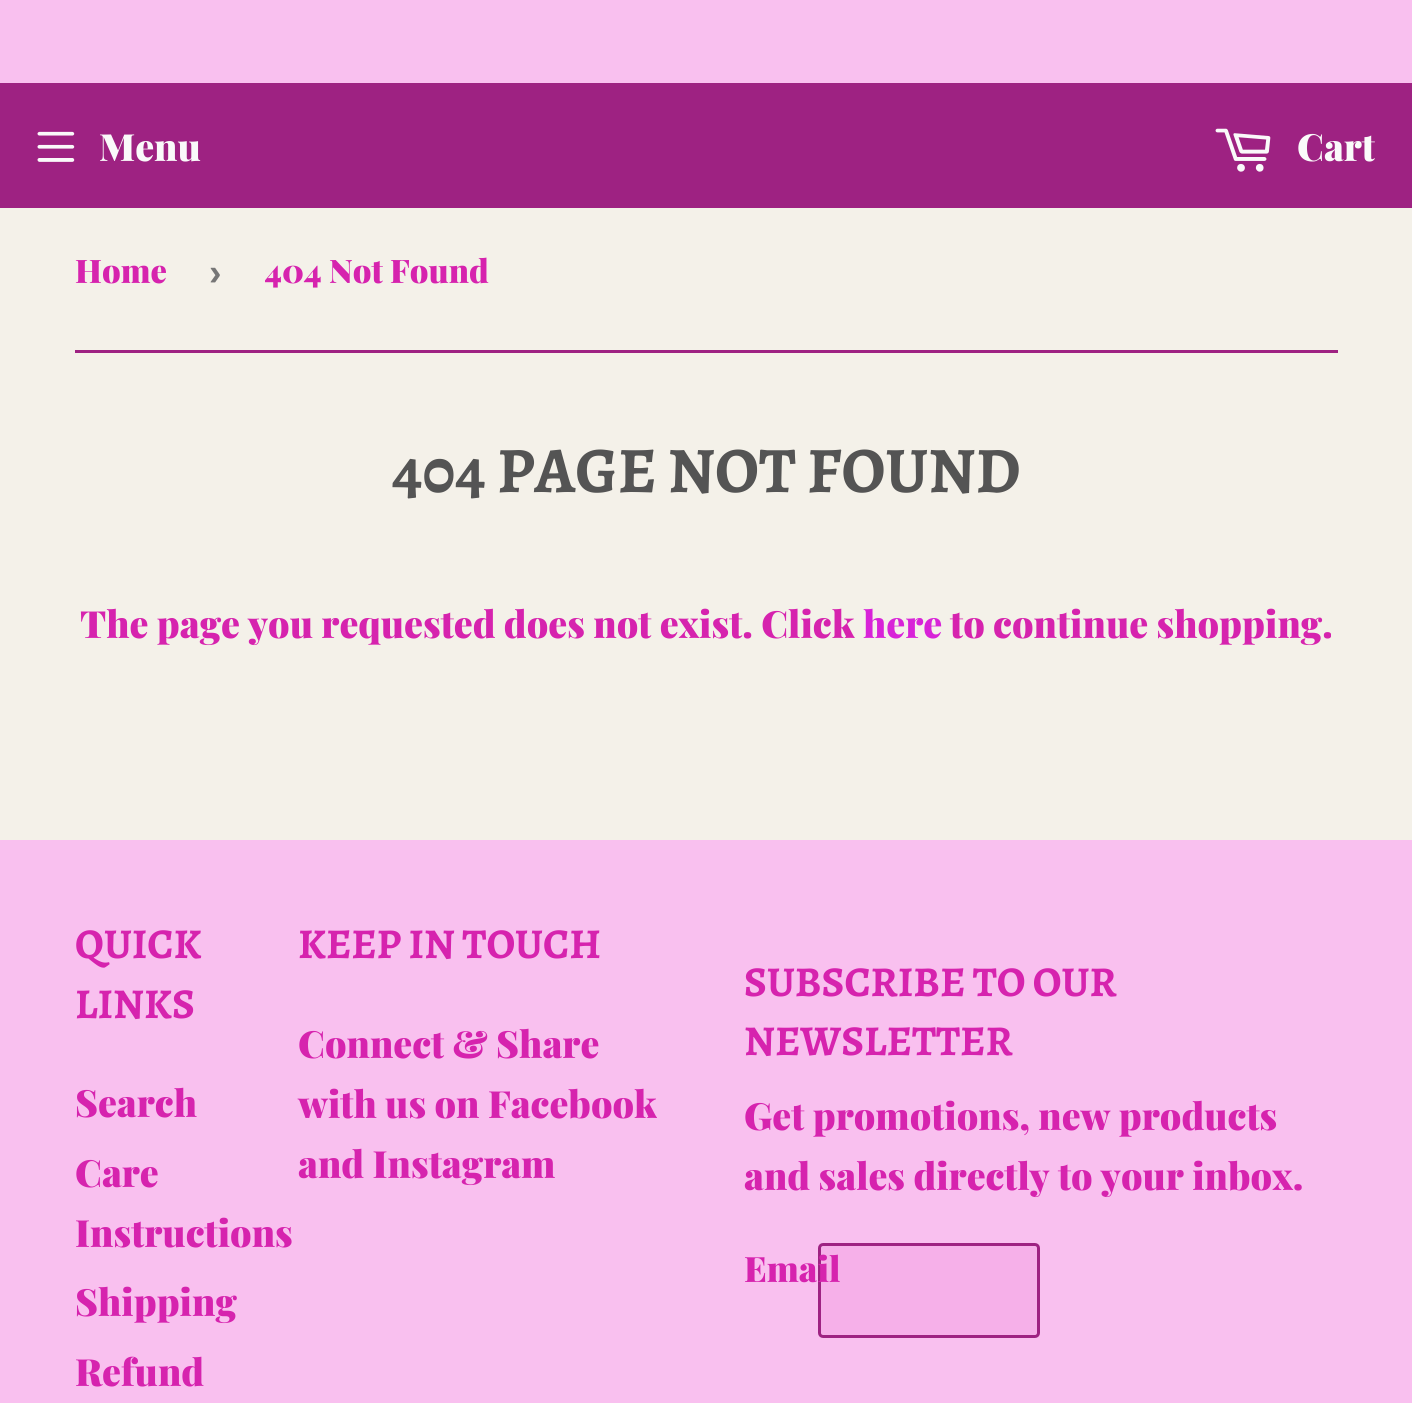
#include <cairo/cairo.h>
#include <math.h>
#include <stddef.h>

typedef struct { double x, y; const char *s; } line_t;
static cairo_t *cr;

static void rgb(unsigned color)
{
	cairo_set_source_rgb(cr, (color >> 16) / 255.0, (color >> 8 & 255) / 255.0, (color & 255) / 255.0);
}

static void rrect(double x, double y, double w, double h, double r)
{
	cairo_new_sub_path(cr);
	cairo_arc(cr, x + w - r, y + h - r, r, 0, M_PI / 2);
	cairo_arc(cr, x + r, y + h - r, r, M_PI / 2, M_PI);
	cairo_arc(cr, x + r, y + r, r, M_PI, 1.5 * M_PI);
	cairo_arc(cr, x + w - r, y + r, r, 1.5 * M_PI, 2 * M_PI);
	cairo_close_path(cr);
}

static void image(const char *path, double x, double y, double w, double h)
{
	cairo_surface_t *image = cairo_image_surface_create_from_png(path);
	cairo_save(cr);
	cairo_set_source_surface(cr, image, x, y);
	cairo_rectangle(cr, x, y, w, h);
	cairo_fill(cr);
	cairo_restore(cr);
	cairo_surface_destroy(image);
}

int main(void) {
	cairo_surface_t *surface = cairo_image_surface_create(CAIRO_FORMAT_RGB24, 1412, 1403);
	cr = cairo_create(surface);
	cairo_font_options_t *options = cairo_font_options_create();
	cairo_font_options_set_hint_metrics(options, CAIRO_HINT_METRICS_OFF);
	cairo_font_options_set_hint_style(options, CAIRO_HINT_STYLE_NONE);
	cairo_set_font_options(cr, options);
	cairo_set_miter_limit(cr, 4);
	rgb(0xf4f1e9);
	cairo_paint(cr);
	rgb(0xf9c0ef);
	cairo_rectangle(cr, 0, 0, 1412, 83);
	cairo_fill(cr);
	rgb(0x9e2282);
	cairo_rectangle(cr, 0, 83, 1412, 125);
	cairo_fill(cr);
	image("img/1.png", 37, 131, 38, 31);
	image("img/2.png", 1215, 128, 56, 44);
	cairo_rectangle(cr, 75, 350, 1263, 3);
	cairo_fill(cr);
	rgb(0xf9c0ef);
	cairo_rectangle(cr, 0, 840, 1412, 563);
	cairo_fill(cr);
	cairo_set_source_rgba(cr, 0.839, 0.137, 0.682, 0.1);
	rrect(819.5, 1244.5, 219, 92, 3.5);
	cairo_fill_preserve(cr);
	rgb(0x9e2282);
	cairo_set_line_width(cr, 3);
	cairo_stroke(cr);
	cairo_select_font_face(cr, "Playfair Display Black", CAIRO_FONT_SLANT_NORMAL, CAIRO_FONT_WEIGHT_NORMAL);
	cairo_set_font_size(cr, 37.5);
	rgb(0xfafafa);
	cairo_move_to(cr, 99, 161);
	cairo_show_text(cr, "Menu");
	cairo_move_to(cr, 1297, 161);
	cairo_show_text(cr, "Cart");
	cairo_set_font_size(cr, 32.5);
	rgb(0xd623ae);
	cairo_move_to(cr, 75, 283);
	cairo_show_text(cr, "Home");
	cairo_select_font_face(cr, "Liberation Sans", CAIRO_FONT_SLANT_NORMAL, CAIRO_FONT_WEIGHT_BOLD);
	cairo_set_font_size(cr, 37.5);
	rgb(0x767676);
	cairo_move_to(cr, 209, 285);
	cairo_show_text(cr, "›");
	cairo_save(cr);
	cairo_rectangle(cr, 265, 208, 240, 127);
	cairo_clip(cr);
	cairo_select_font_face(cr, "Playfair Display Black", CAIRO_FONT_SLANT_NORMAL, CAIRO_FONT_WEIGHT_NORMAL);
	cairo_set_font_size(cr, 32.5);
	rgb(0xd623ae);
	cairo_move_to(cr, 264, 283);
	cairo_show_text(cr, "404 Not Found");
	cairo_restore(cr);
	cairo_select_font_face(cr, "Alegreya", CAIRO_FONT_SLANT_NORMAL, CAIRO_FONT_WEIGHT_BOLD);
	cairo_set_font_size(cr, 65);
	rgb(0x545454);
	cairo_move_to(cr, 392, 492);
	cairo_show_text(cr, "404 PAGE NOT FOUND");
	cairo_select_font_face(cr, "Playfair Display Black", CAIRO_FONT_SLANT_NORMAL, CAIRO_FONT_WEIGHT_NORMAL);
	cairo_set_font_size(cr, 37.5);
	rgb(0xd623ae);
	cairo_move_to(cr, 80, 638);
	cairo_show_text(cr, "The page you requested does not exist. Click");
	rgb(0xd823d8);
	cairo_move_to(cr, 863, 638);
	cairo_show_text(cr, "here");
	rgb(0xd623ae);
	cairo_move_to(cr, 950, 638);
	cairo_show_text(cr, "to continue shopping.");
	cairo_select_font_face(cr, "Alegreya", CAIRO_FONT_SLANT_NORMAL, CAIRO_FONT_WEIGHT_BOLD);
	cairo_set_font_size(cr, 42.5);
	cairo_move_to(cr, 75, 958);
	cairo_show_text(cr, "QUICK");
	cairo_move_to(cr, 75, 1018);
	cairo_show_text(cr, "LINKS");
	cairo_select_font_face(cr, "Playfair Display Black", CAIRO_FONT_SLANT_NORMAL, CAIRO_FONT_WEIGHT_NORMAL);
	cairo_set_font_size(cr, 37.5);
	{
		static const line_t items[] = {
			{75, 1117, "Search"},
			{75, 1187, "Care"},
			{75, 1247, "Instructions"},
			{75, 1316, "Shipping"},
			{75, 1386, "Refund"},
		};
		for (size_t i = 0; i < sizeof items / sizeof *items; i++) {
			cairo_move_to(cr, items[i].x, items[i].y);
			cairo_show_text(cr, items[i].s);
		}
	}
	cairo_select_font_face(cr, "Alegreya", CAIRO_FONT_SLANT_NORMAL, CAIRO_FONT_WEIGHT_BOLD);
	cairo_set_font_size(cr, 42.5);
	cairo_move_to(cr, 298, 958);
	cairo_show_text(cr, "KEEP IN TOUCH");
	cairo_select_font_face(cr, "Playfair Display Black", CAIRO_FONT_SLANT_NORMAL, CAIRO_FONT_WEIGHT_NORMAL);
	cairo_set_font_size(cr, 37.5);
	{
		static const line_t items[] = {
			{298, 1058, "Connect & Share"},
			{298, 1118, "with us on Facebook"},
			{298, 1178, "and Instagram"},
		};
		for (size_t i = 0; i < sizeof items / sizeof *items; i++) {
			cairo_move_to(cr, items[i].x, items[i].y);
			cairo_show_text(cr, items[i].s);
		}
	}
	cairo_select_font_face(cr, "Alegreya", CAIRO_FONT_SLANT_NORMAL, CAIRO_FONT_WEIGHT_BOLD);
	cairo_set_font_size(cr, 42.5);
	cairo_move_to(cr, 744, 996);
	cairo_show_text(cr, "SUBSCRIBE TO OUR");
	cairo_move_to(cr, 744, 1055);
	cairo_show_text(cr, "NEWSLETTER");
	cairo_select_font_face(cr, "Playfair Display Black", CAIRO_FONT_SLANT_NORMAL, CAIRO_FONT_WEIGHT_NORMAL);
	cairo_set_font_size(cr, 37.5);
	cairo_move_to(cr, 744, 1130);
	cairo_show_text(cr, "Get promotions, new products");
	cairo_move_to(cr, 744, 1190);
	cairo_show_text(cr, "and sales directly to your inbox.");
	cairo_set_font_size(cr, 35);
	cairo_move_to(cr, 744, 1282);
	cairo_show_text(cr, "Email");
	cairo_surface_write_to_png(surface, "page.png");
	cairo_font_options_destroy(options);
	cairo_destroy(cr);
	cairo_surface_destroy(surface);
	return 0;
}
